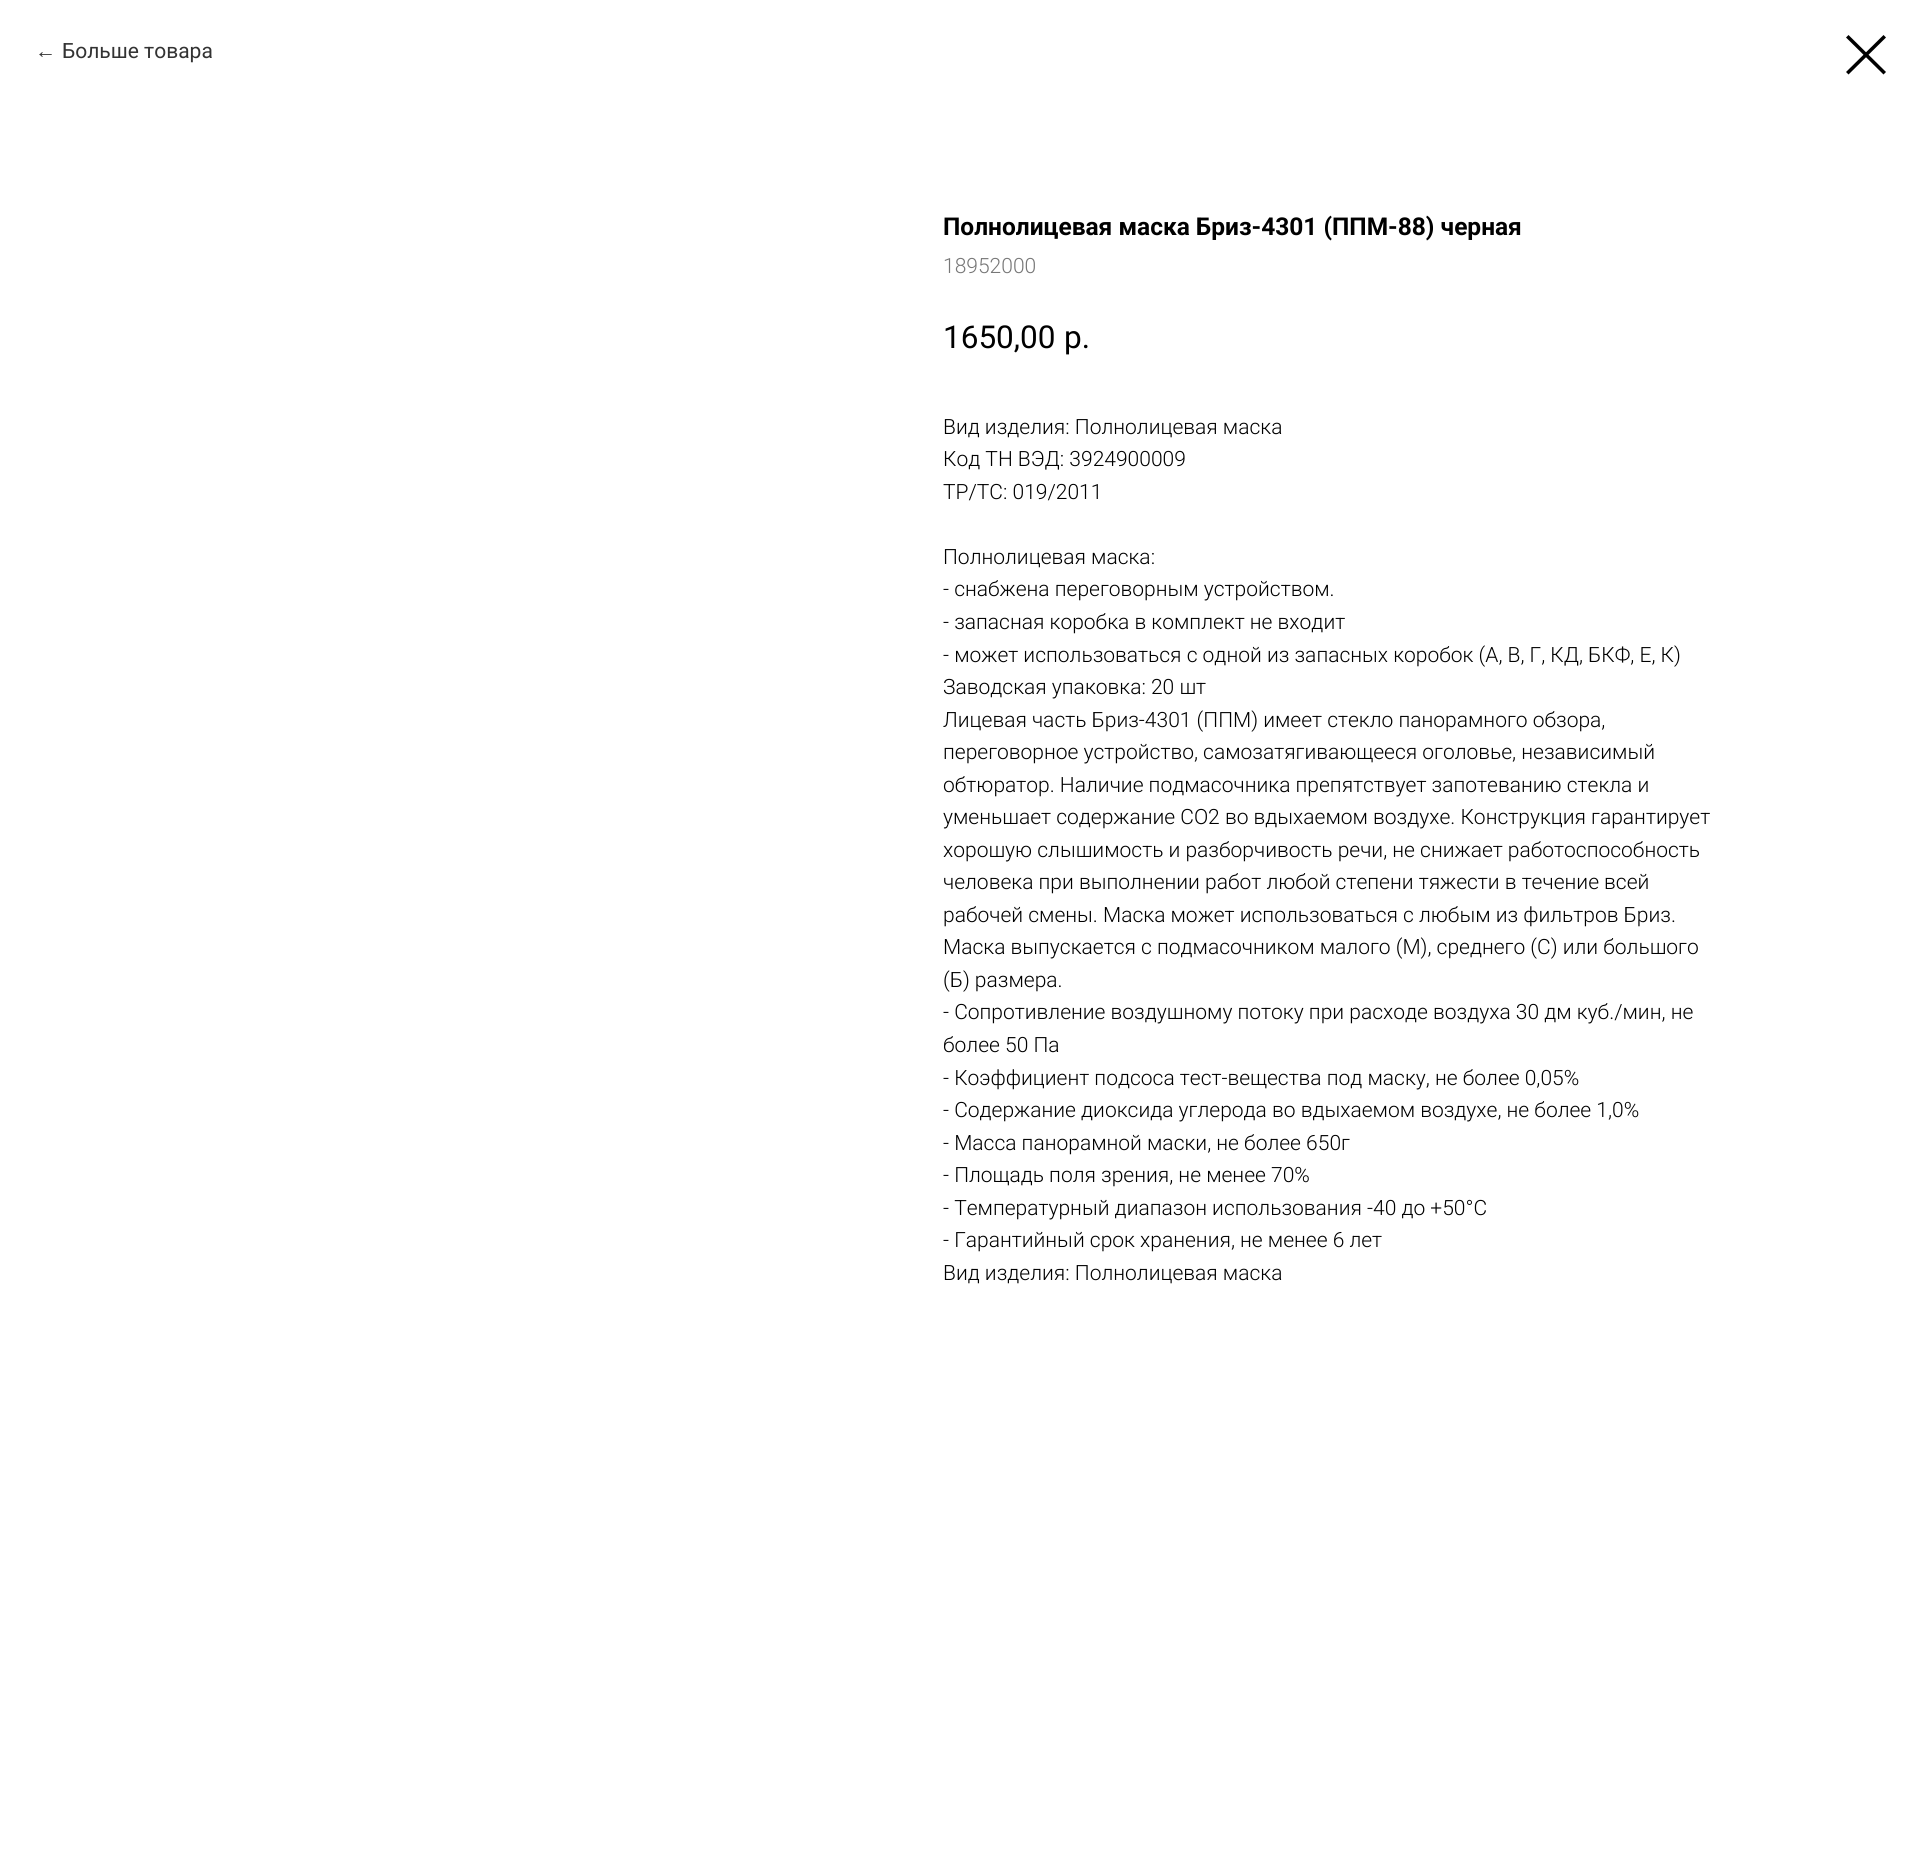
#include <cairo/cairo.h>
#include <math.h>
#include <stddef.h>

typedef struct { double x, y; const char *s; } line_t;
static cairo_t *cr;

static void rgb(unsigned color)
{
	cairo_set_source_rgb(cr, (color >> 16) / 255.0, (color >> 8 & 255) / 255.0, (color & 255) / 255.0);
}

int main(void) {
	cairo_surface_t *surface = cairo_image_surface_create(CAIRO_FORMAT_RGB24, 1920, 1872);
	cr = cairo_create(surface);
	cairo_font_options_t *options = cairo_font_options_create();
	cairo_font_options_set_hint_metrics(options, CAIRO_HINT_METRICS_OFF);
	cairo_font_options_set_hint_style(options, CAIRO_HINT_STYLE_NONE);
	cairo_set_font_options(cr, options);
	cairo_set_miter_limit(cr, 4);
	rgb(0xffffff);
	cairo_paint(cr);
	rgb(0x000000);
	cairo_set_fill_rule(cr, CAIRO_FILL_RULE_EVEN_ODD);
	cairo_new_path(cr);
	cairo_move_to(cr, 1846, 37.5);
	cairo_line_to(cr, 1848.5, 35);
	cairo_line_to(cr, 1886, 72);
	cairo_line_to(cr, 1883.5, 74.5);
	cairo_close_path(cr);
	cairo_fill(cr);
	cairo_new_path(cr);
	cairo_move_to(cr, 1883.5, 35);
	cairo_line_to(cr, 1886, 37.5);
	cairo_line_to(cr, 1848.5, 74.5);
	cairo_line_to(cr, 1846, 72);
	cairo_close_path(cr);
	cairo_fill(cr);
	cairo_select_font_face(cr, "Liberation Sans", CAIRO_FONT_SLANT_NORMAL, CAIRO_FONT_WEIGHT_NORMAL);
	cairo_set_font_size(cr, 21);
	rgb(0x333333);
	cairo_move_to(cr, 35, 58);
	cairo_show_text(cr, "←");
	cairo_select_font_face(cr, "Roboto", CAIRO_FONT_SLANT_NORMAL, CAIRO_FONT_WEIGHT_NORMAL);
	cairo_move_to(cr, 62, 58);
	cairo_show_text(cr, "Больше товара");
	cairo_select_font_face(cr, "Roboto", CAIRO_FONT_SLANT_NORMAL, CAIRO_FONT_WEIGHT_BOLD);
	cairo_set_font_size(cr, 24.5);
	rgb(0x000000);
	cairo_move_to(cr, 943, 235);
	cairo_show_text(cr, "Полнолицевая маска Бриз-4301 (ППМ-88) черная");
	cairo_select_font_face(cr, "Roboto Light", CAIRO_FONT_SLANT_NORMAL, CAIRO_FONT_WEIGHT_NORMAL);
	cairo_set_font_size(cr, 21);
	rgb(0x777777);
	cairo_move_to(cr, 943, 273);
	cairo_show_text(cr, "18952000");
	cairo_select_font_face(cr, "Roboto", CAIRO_FONT_SLANT_NORMAL, CAIRO_FONT_WEIGHT_NORMAL);
	cairo_set_font_size(cr, 31.5);
	rgb(0x000000);
	cairo_move_to(cr, 943, 348);
	cairo_show_text(cr, "1650,00");
	cairo_move_to(cr, 1064, 348);
	cairo_show_text(cr, "р.");
	cairo_select_font_face(cr, "Roboto Light", CAIRO_FONT_SLANT_NORMAL, CAIRO_FONT_WEIGHT_NORMAL);
	cairo_set_font_size(cr, 21);
	{
		static const line_t items[] = {
			{943, 434, "Вид изделия: Полнолицевая маска"},
			{943, 466, "Код ТН ВЭД: 3924900009"},
			{943, 499, "ТР/ТС: 019/2011"},
			{943, 564, "Полнолицевая маска:"},
			{943, 596, "- снабжена переговорным устройством."},
			{943, 629, "- запасная коробка в комплект не входит"},
			{943, 662, "- может использоваться с одной из запасных коробок (А, В, Г, КД, БКФ, Е, К)"},
			{943, 694, "Заводская упаковка: 20 шт"},
			{943, 727, "Лицевая часть Бриз-4301 (ППМ) имеет стекло панорамного обзора,"},
			{943, 759, "переговорное устройство, самозатягивающееся оголовье, независимый"},
			{943, 792, "обтюратор. Наличие подмасочника препятствует запотеванию стекла и"},
			{943, 824, "уменьшает содержание CO2 во вдыхаемом воздухе. Конструкция гарантирует"},
			{943, 857, "хорошую слышимость и разборчивость речи, не снижает работоспособность"},
			{943, 889, "человека при выполнении работ любой степени тяжести в течение всей"},
			{943, 922, "рабочей смены. Маска может использоваться с любым из фильтров Бриз."},
			{943, 954, "Маска выпускается с подмасочником малого (М), среднего (С) или большого"},
			{943, 987, "(Б) размера."},
			{943, 1019, "- Сопротивление воздушному потоку при расходе воздуха 30 дм куб./мин, не"},
			{943, 1052, "более 50 Па"},
			{943, 1085, "- Коэффициент подсоса тест-вещества под маску, не более 0,05%"},
			{943, 1117, "- Содержание диоксида углерода во вдыхаемом воздухе, не более 1,0%"},
			{943, 1150, "- Масса панорамной маски, не более 650г"},
			{943, 1182, "- Площадь поля зрения, не менее 70%"},
			{943, 1215, "- Температурный диапазон использования -40 до +50°С"},
			{943, 1247, "- Гарантийный срок хранения, не менее 6 лет"},
			{943, 1280, "Вид изделия: Полнолицевая маска"},
		};
		for (size_t i = 0; i < sizeof items / sizeof *items; i++) {
			cairo_move_to(cr, items[i].x, items[i].y);
			cairo_show_text(cr, items[i].s);
		}
	}
	cairo_surface_write_to_png(surface, "page.png");
	cairo_font_options_destroy(options);
	cairo_destroy(cr);
	cairo_surface_destroy(surface);
	return 0;
}
